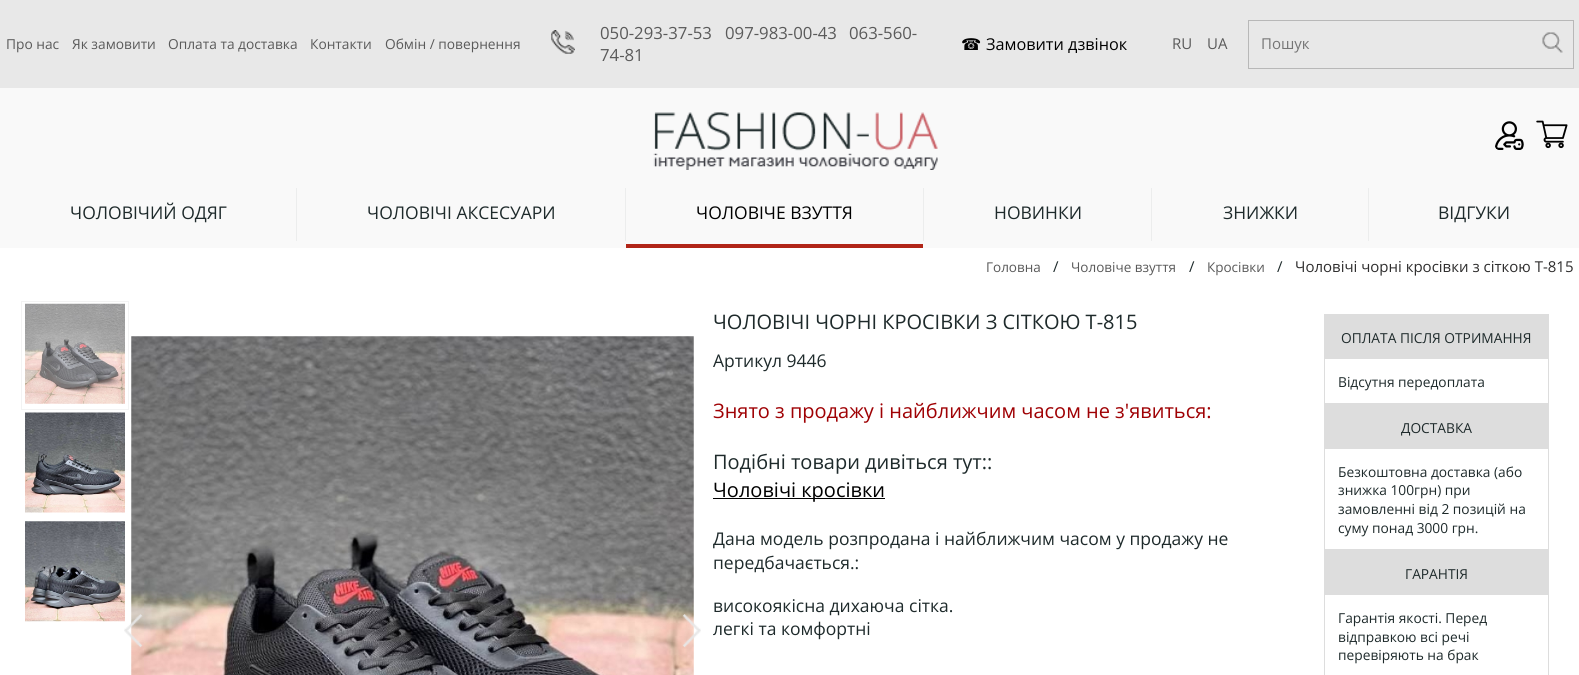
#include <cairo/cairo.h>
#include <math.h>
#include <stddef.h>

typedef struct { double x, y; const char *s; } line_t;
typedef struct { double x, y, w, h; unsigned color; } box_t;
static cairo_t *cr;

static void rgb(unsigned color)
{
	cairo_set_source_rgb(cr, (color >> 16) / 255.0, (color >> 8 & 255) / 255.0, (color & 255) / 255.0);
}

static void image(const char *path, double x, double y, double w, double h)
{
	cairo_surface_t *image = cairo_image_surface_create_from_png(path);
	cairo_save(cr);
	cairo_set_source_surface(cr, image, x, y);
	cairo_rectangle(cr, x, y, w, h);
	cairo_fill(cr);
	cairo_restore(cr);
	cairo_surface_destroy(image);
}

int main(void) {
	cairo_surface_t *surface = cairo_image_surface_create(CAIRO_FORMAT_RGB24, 1579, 675);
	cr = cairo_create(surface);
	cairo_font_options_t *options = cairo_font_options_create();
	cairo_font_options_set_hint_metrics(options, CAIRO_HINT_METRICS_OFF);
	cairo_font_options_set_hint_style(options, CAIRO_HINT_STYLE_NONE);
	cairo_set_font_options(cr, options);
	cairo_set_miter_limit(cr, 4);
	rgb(0xffffff);
	cairo_paint(cr);
	rgb(0xf9f9f9);
	cairo_rectangle(cr, 0, 88, 1579, 160);
	cairo_fill(cr);
	rgb(0xe8e8e8);
	cairo_rectangle(cr, 0, 0, 1579, 88);
	cairo_fill(cr);
	image("img/1.png", 551, 30, 24, 24);
	cairo_rectangle(cr, 1248.5, 20.5, 325, 48);
	rgb(0xb8b8b8);
	cairo_set_line_width(cr, 1);
	cairo_stroke(cr);
	image("img/2.png", 1542, 32, 21, 21);
	image("img/3.png", 653, 112, 285, 58);
	image("img/4.png", 1495, 121, 29, 29);
	image("img/5.png", 1536, 120, 32, 29);
	{
		static const box_t items[] = {
			{296, 188, 1, 53, 0xeceded},
			{625, 188, 1, 53, 0xeceded},
			{626, 244, 297, 4, 0xb12518},
			{923, 188, 1, 53, 0xeceded},
			{1151, 188, 1, 53, 0xeceded},
			{1368, 188, 1, 53, 0xeceded},
		};
		for (size_t i = 0; i < sizeof items / sizeof *items; i++) {
			rgb(items[i].color);
			cairo_rectangle(cr, items[i].x, items[i].y, items[i].w, items[i].h);
			cairo_fill(cr);
		}
	}
	cairo_rectangle(cr, 21.5, 301.5, 107, 108);
	rgb(0xf3f3f3);
	cairo_stroke(cr);
	image("img/6.png", 25, 303, 100, 101);
	image("img/7.png", 25, 412, 100, 101);
	image("img/8.png", 25, 521, 100, 101);
	image("img/9.png", 131, 336, 563, 339);
	image("img/10.png", 124, 614, 19, 34);
	image("img/11.png", 682, 614, 19, 34);
	rgb(0x000000);
	cairo_rectangle(cr, 713, 498, 172, 1);
	cairo_fill(cr);
	cairo_rectangle(cr, 1324.5, 314.5, 224, 89);
	rgb(0xdddddd);
	cairo_stroke(cr);
	cairo_rectangle(cr, 1325, 315, 223, 44);
	cairo_fill(cr);
	cairo_rectangle(cr, 1324.5, 404.5, 224, 145);
	cairo_stroke(cr);
	cairo_rectangle(cr, 1325, 405, 223, 44);
	cairo_fill(cr);
	cairo_rectangle(cr, 1324.5, 550.5, 224, 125);
	cairo_stroke(cr);
	cairo_rectangle(cr, 1325, 551, 223, 44);
	cairo_fill(cr);
	cairo_select_font_face(cr, "Open Sans", CAIRO_FONT_SLANT_NORMAL, CAIRO_FONT_WEIGHT_NORMAL);
	cairo_set_font_size(cr, 13.75);
	rgb(0x5a5a5a);
	{
		static const line_t items[] = {
			{6, 49, "Про нас"},
			{72, 49, "Як замовити"},
			{168, 49, "Оплата та доставка"},
			{310, 49, "Контакти"},
			{385, 49, "Обмін / повернення"},
		};
		for (size_t i = 0; i < sizeof items / sizeof *items; i++) {
			cairo_move_to(cr, items[i].x, items[i].y);
			cairo_show_text(cr, items[i].s);
		}
	}
	cairo_set_font_size(cr, 16.75);
	{
		static const line_t items[] = {
			{600, 39, "050-293-37-53"},
			{725, 39, "097-983-00-43"},
			{849, 39, "063-560-"},
			{600, 61, "74-81"},
		};
		for (size_t i = 0; i < sizeof items / sizeof *items; i++) {
			cairo_move_to(cr, items[i].x, items[i].y);
			cairo_show_text(cr, items[i].s);
		}
	}
	cairo_select_font_face(cr, "DejaVu Sans", CAIRO_FONT_SLANT_NORMAL, CAIRO_FONT_WEIGHT_NORMAL);
	cairo_set_font_size(cr, 16.25);
	rgb(0x000000);
	cairo_move_to(cr, 961, 50);
	cairo_show_text(cr, "☎");
	cairo_select_font_face(cr, "Open Sans", CAIRO_FONT_SLANT_NORMAL, CAIRO_FONT_WEIGHT_NORMAL);
	cairo_move_to(cr, 986, 50);
	cairo_show_text(cr, "Замовити дзвінок");
	cairo_set_font_size(cr, 15);
	rgb(0x5a5a5a);
	cairo_move_to(cr, 1172, 49);
	cairo_show_text(cr, "RU");
	cairo_move_to(cr, 1207, 49);
	cairo_show_text(cr, "UA");
	rgb(0x757575);
	cairo_move_to(cr, 1261, 49);
	cairo_show_text(cr, "Пошук");
	cairo_set_font_size(cr, 17.5);
	rgb(0x1e2a2b);
	cairo_move_to(cr, 70, 219);
	cairo_show_text(cr, "ЧОЛОВІЧИЙ ОДЯГ");
	cairo_move_to(cr, 367, 219);
	cairo_show_text(cr, "ЧОЛОВІЧІ АКСЕСУАРИ");
	rgb(0x000000);
	cairo_move_to(cr, 696, 219);
	cairo_show_text(cr, "ЧОЛОВІЧЕ ВЗУТТЯ");
	rgb(0x1e2a2b);
	{
		static const line_t items[] = {
			{994, 219, "НОВИНКИ"},
			{1223, 219, "ЗНИЖКИ"},
			{1438, 219, "ВІДГУКИ"},
		};
		for (size_t i = 0; i < sizeof items / sizeof *items; i++) {
			cairo_move_to(cr, items[i].x, items[i].y);
			cairo_show_text(cr, items[i].s);
		}
	}
	cairo_set_font_size(cr, 13.5);
	rgb(0x5a5a5a);
	cairo_move_to(cr, 986, 272);
	cairo_show_text(cr, "Головна");
	cairo_set_font_size(cr, 15);
	rgb(0x1e2a2b);
	cairo_move_to(cr, 1053, 272);
	cairo_show_text(cr, "/");
	cairo_set_font_size(cr, 13.5);
	rgb(0x5a5a5a);
	cairo_move_to(cr, 1071, 272);
	cairo_show_text(cr, "Чоловіче взуття");
	cairo_set_font_size(cr, 15);
	rgb(0x1e2a2b);
	cairo_move_to(cr, 1189, 272);
	cairo_show_text(cr, "/");
	cairo_set_font_size(cr, 13.5);
	rgb(0x5a5a5a);
	cairo_move_to(cr, 1207, 272);
	cairo_show_text(cr, "Кросівки");
	cairo_set_font_size(cr, 15);
	rgb(0x1e2a2b);
	cairo_move_to(cr, 1277, 272);
	cairo_show_text(cr, "/");
	rgb(0x2f2e2e);
	cairo_move_to(cr, 1295, 272);
	cairo_show_text(cr, "Чоловічі чорні кросівки з сіткою Т-815");
	cairo_set_font_size(cr, 20);
	rgb(0x1e2a2b);
	cairo_move_to(cr, 713, 329);
	cairo_show_text(cr, "ЧОЛОВІЧІ ЧОРНІ КРОСІВКИ З СІТКОЮ Т-815");
	cairo_set_font_size(cr, 17.5);
	cairo_move_to(cr, 713, 367);
	cairo_show_text(cr, "Артикул 9446");
	cairo_set_font_size(cr, 20);
	rgb(0x9f0104);
	cairo_move_to(cr, 713, 418);
	cairo_show_text(cr, "Знято з продажу і найближчим часом не з'явиться:");
	rgb(0x1e2a2b);
	cairo_move_to(cr, 713, 469);
	cairo_show_text(cr, "Подібні товари дивіться тут::");
	rgb(0x000000);
	cairo_move_to(cr, 713, 497);
	cairo_show_text(cr, "Чоловічі кросівки");
	cairo_set_font_size(cr, 17.5);
	rgb(0x1e2a2b);
	{
		static const line_t items[] = {
			{713, 545, "Дана модель розпродана і найближчим часом у продажу не"},
			{713, 569, "передбачається.:"},
			{713, 612, "високоякісна дихаюча сітка."},
			{713, 635, "легкі та комфортні"},
		};
		for (size_t i = 0; i < sizeof items / sizeof *items; i++) {
			cairo_move_to(cr, items[i].x, items[i].y);
			cairo_show_text(cr, items[i].s);
		}
	}
	cairo_set_font_size(cr, 13.75);
	{
		static const line_t items[] = {
			{1341, 343, "ОПЛАТА ПІСЛЯ ОТРИМАННЯ"},
			{1338, 387, "Відсутня передоплата"},
			{1401, 433, "ДОСТАВКА"},
			{1338, 477, "Безкоштовна доставка (або"},
			{1338, 495, "знижка 100грн) при"},
			{1338, 514, "замовленні від 2 позицій на"},
			{1338, 533, "суму понад 3000 грн."},
			{1405, 579, "ГАРАНТІЯ"},
			{1338, 623, "Гарантія якості. Перед"},
			{1338, 642, "відправкою всі речі"},
			{1338, 660, "перевіряють на брак"},
		};
		for (size_t i = 0; i < sizeof items / sizeof *items; i++) {
			cairo_move_to(cr, items[i].x, items[i].y);
			cairo_show_text(cr, items[i].s);
		}
	}
	cairo_surface_write_to_png(surface, "page.png");
	cairo_font_options_destroy(options);
	cairo_destroy(cr);
	cairo_surface_destroy(surface);
	return 0;
}
